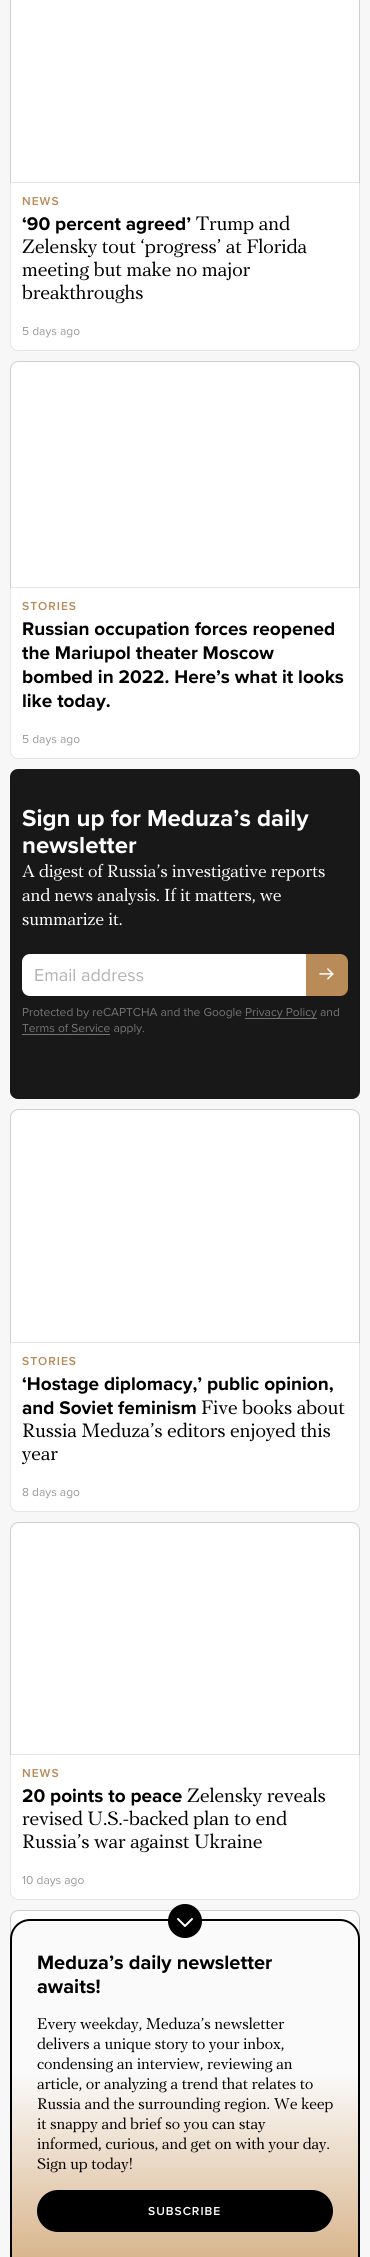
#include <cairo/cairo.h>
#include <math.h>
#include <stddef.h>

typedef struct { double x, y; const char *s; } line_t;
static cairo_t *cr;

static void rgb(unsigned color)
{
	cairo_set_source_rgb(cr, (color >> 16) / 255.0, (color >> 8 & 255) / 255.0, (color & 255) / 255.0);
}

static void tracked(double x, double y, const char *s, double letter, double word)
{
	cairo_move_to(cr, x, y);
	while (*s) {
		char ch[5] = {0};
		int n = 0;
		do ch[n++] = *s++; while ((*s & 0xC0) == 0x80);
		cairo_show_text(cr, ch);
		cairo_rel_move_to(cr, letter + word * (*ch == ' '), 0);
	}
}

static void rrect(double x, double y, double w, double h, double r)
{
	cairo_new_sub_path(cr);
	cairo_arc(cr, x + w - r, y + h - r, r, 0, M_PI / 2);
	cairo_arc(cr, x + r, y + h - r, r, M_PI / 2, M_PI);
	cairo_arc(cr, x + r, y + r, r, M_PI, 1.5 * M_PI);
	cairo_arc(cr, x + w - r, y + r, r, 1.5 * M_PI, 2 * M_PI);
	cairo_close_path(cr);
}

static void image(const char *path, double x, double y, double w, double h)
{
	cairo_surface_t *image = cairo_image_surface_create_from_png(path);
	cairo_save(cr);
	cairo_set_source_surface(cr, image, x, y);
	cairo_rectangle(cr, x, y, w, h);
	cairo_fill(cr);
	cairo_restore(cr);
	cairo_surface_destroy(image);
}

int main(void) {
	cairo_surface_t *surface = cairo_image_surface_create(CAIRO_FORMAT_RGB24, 370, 2257);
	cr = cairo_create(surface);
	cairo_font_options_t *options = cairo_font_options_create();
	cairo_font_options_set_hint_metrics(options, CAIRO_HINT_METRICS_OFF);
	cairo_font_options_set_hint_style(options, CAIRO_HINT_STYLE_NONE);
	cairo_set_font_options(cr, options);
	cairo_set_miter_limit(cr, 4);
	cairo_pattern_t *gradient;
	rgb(0xf7f7f7);
	cairo_paint(cr);
	rgb(0xffffff);
	rrect(10.5, -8.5, 349, 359, 7.5);
	cairo_fill_preserve(cr);
	rgb(0xe5e5e5);
	cairo_set_line_width(cr, 1);
	cairo_stroke(cr);
	cairo_rectangle(cr, 10.5, -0.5, 349, 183);
	cairo_set_source_rgba(cr, 0, 0, 0, 0.1);
	cairo_stroke(cr);
	image("img/1.png", 196, 215, 94, 20);
	image("img/2.png", 22, 238, 285, 20);
	image("img/3.png", 22, 261, 229, 20);
	image("img/4.png", 22, 284, 121, 20);
	rgb(0xffffff);
	rrect(10.5, 361.5, 349, 397, 7.5);
	cairo_fill_preserve(cr);
	rgb(0xe5e5e5);
	cairo_stroke(cr);
	cairo_new_path(cr);
	cairo_move_to(cr, 19, 361.5);
	cairo_line_to(cr, 351, 361.5);
	cairo_curve_to(cr, 355.5, 361.5, 359.5, 365.5, 359.5, 370);
	cairo_line_to(cr, 359.5, 587.5);
	cairo_line_to(cr, 10.5, 587.5);
	cairo_line_to(cr, 10.5, 370);
	cairo_curve_to(cr, 10.5, 365.5, 14.5, 361.5, 19, 361.5);
	cairo_close_path(cr);
	cairo_set_source_rgba(cr, 0, 0, 0, 0.1);
	cairo_stroke(cr);
	rgb(0x181818);
	rrect(10, 769, 350, 330, 8);
	cairo_fill(cr);
	rrect(10.5, 769.5, 349, 329, 7.5);
	cairo_set_source_rgba(cr, 0, 0, 0, 0.1);
	cairo_stroke(cr);
	image("img/5.png", 22, 863, 303, 18);
	image("img/6.png", 22, 887, 259, 18);
	image("img/7.png", 22, 912, 100, 14);
	rgb(0xffffff);
	cairo_new_path(cr);
	cairo_move_to(cr, 30, 954);
	cairo_line_to(cr, 306, 954);
	cairo_line_to(cr, 306, 996);
	cairo_line_to(cr, 30, 996);
	cairo_curve_to(cr, 25.5, 996, 22, 992.5, 22, 988);
	cairo_line_to(cr, 22, 962);
	cairo_curve_to(cr, 22, 957.5, 25.5, 954, 30, 954);
	cairo_close_path(cr);
	cairo_fill(cr);
	rgb(0xb88b58);
	cairo_new_path(cr);
	cairo_move_to(cr, 306, 954);
	cairo_line_to(cr, 340, 954);
	cairo_curve_to(cr, 344.5, 954, 348, 957.5, 348, 962);
	cairo_line_to(cr, 348, 988);
	cairo_curve_to(cr, 348, 992.5, 344.5, 996, 340, 996);
	cairo_line_to(cr, 306, 996);
	cairo_close_path(cr);
	cairo_fill(cr);
	image("img/8.png", 319, 968, 15, 12);
	rgb(0x747474);
	cairo_rectangle(cr, 245, 1018, 72, 1);
	cairo_fill(cr);
	cairo_rectangle(cr, 22, 1034, 88, 1);
	cairo_fill(cr);
	rgb(0xffffff);
	rrect(10.5, 1109.5, 349, 402, 7.5);
	cairo_fill_preserve(cr);
	rgb(0xe5e5e5);
	cairo_stroke(cr);
	cairo_new_path(cr);
	cairo_move_to(cr, 19, 1109.5);
	cairo_line_to(cr, 351, 1109.5);
	cairo_curve_to(cr, 355.5, 1109.5, 359.5, 1113.5, 359.5, 1118);
	cairo_line_to(cr, 359.5, 1342.5);
	cairo_line_to(cr, 10.5, 1342.5);
	cairo_line_to(cr, 10.5, 1118);
	cairo_curve_to(cr, 10.5, 1113.5, 14.5, 1109.5, 19, 1109.5);
	cairo_close_path(cr);
	cairo_set_source_rgba(cr, 0, 0, 0, 0.1);
	cairo_stroke(cr);
	image("img/9.png", 201, 1399, 144, 16);
	image("img/10.png", 23, 1422, 308, 20);
	image("img/11.png", 21, 1451, 37, 14);
	rgb(0xffffff);
	rrect(10.5, 1522.5, 349, 377, 7.5);
	cairo_fill_preserve(cr);
	rgb(0xe5e5e5);
	cairo_stroke(cr);
	cairo_new_path(cr);
	cairo_move_to(cr, 19, 1522.5);
	cairo_line_to(cr, 351, 1522.5);
	cairo_curve_to(cr, 355.5, 1522.5, 359.5, 1526.5, 359.5, 1531);
	cairo_line_to(cr, 359.5, 1754.5);
	cairo_line_to(cr, 10.5, 1754.5);
	cairo_line_to(cr, 10.5, 1531);
	cairo_curve_to(cr, 10.5, 1526.5, 14.5, 1522.5, 19, 1522.5);
	cairo_close_path(cr);
	cairo_set_source_rgba(cr, 0, 0, 0, 0.1);
	cairo_stroke(cr);
	image("img/12.png", 187, 1787, 139, 20);
	image("img/13.png", 22, 1810, 265, 20);
	image("img/14.png", 23, 1833, 239, 20);
	rgb(0xffffff);
	rrect(10.5, 1910.5, 349, 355, 7.5);
	cairo_fill_preserve(cr);
	rgb(0xe5e5e5);
	cairo_stroke(cr);
	cairo_new_path(cr);
	cairo_move_to(cr, 19, 1910.5);
	cairo_line_to(cr, 351, 1910.5);
	cairo_curve_to(cr, 355.5, 1910.5, 359.5, 1914.5, 359.5, 1919);
	cairo_line_to(cr, 359.5, 2142.5);
	cairo_line_to(cr, 10.5, 2142.5);
	cairo_line_to(cr, 10.5, 1919);
	cairo_curve_to(cr, 10.5, 1914.5, 14.5, 1910.5, 19, 1910.5);
	cairo_close_path(cr);
	cairo_set_source_rgba(cr, 0, 0, 0, 0.1);
	cairo_stroke(cr);
	gradient = cairo_pattern_create_linear(185, 1921, 185, 2257);
	cairo_pattern_add_color_stop_rgba(gradient, 0.45, 0.98, 0.98, 0.98, 1);
	cairo_pattern_add_color_stop_rgba(gradient, 1, 0.851, 0.714, 0.557, 1);
	cairo_set_source(cr, gradient);
	cairo_pattern_destroy(gradient);
	cairo_new_path(cr);
	cairo_move_to(cr, 30, 1921);
	cairo_line_to(cr, 340, 1921);
	cairo_curve_to(cr, 350, 1921, 358, 1929, 358, 1939);
	cairo_line_to(cr, 358, 2257);
	cairo_line_to(cr, 12, 2257);
	cairo_line_to(cr, 12, 1939);
	cairo_curve_to(cr, 12, 1929, 20, 1921, 30, 1921);
	cairo_close_path(cr);
	cairo_fill(cr);
	rgb(0x000000);
	cairo_set_fill_rule(cr, CAIRO_FILL_RULE_EVEN_ODD);
	cairo_new_path(cr);
	cairo_move_to(cr, 30, 1919);
	cairo_line_to(cr, 340, 1919);
	cairo_curve_to(cr, 351, 1919, 360, 1928, 360, 1939);
	cairo_line_to(cr, 360, 2257);
	cairo_line_to(cr, 10, 2257);
	cairo_line_to(cr, 10, 1939);
	cairo_curve_to(cr, 10, 1928, 19, 1919, 30, 1919);
	cairo_close_path(cr);
	cairo_move_to(cr, 30, 1921);
	cairo_line_to(cr, 340, 1921);
	cairo_curve_to(cr, 350, 1921, 358, 1929, 358, 1939);
	cairo_line_to(cr, 358, 2257);
	cairo_line_to(cr, 12, 2257);
	cairo_line_to(cr, 12, 1939);
	cairo_curve_to(cr, 12, 1929, 20, 1921, 30, 1921);
	cairo_close_path(cr);
	cairo_fill(cr);
	cairo_arc(cr, 185, 1921, 16, 0, 2 * M_PI);
	cairo_fill_preserve(cr);
	cairo_set_line_width(cr, 2);
	cairo_stroke(cr);
	cairo_new_path(cr);
	cairo_move_to(cr, 178, 1919);
	cairo_line_to(cr, 185, 1926);
	cairo_move_to(cr, 192, 1919);
	cairo_line_to(cr, 185, 1926);
	rgb(0xffffff);
	cairo_set_line_cap(cr, CAIRO_LINE_CAP_ROUND);
	cairo_set_line_join(cr, CAIRO_LINE_JOIN_ROUND);
	cairo_stroke(cr);
	image("img/15.png", 37, 2017, 248, 16);
	image("img/16.png", 37, 2037, 247, 16);
	image("img/17.png", 37, 2057, 255, 16);
	image("img/18.png", 37, 2077, 276, 16);
	image("img/19.png", 37, 2097, 233, 16);
	image("img/20.png", 274, 2097, 59, 16);
	image("img/21.png", 37, 2117, 229, 16);
	image("img/22.png", 37, 2137, 292, 16);
	image("img/23.png", 37, 2157, 95, 16);
	rgb(0x000000);
	rrect(37, 2190, 296, 42, 21);
	cairo_fill(cr);
	cairo_select_font_face(cr, "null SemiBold", CAIRO_FONT_SLANT_NORMAL, CAIRO_FONT_WEIGHT_NORMAL);
	cairo_set_font_size(cr, 12);
	rgb(0xb88b58);
	tracked(22, 205, "NEWS", 1, 0);
	cairo_select_font_face(cr, "null", CAIRO_FONT_SLANT_NORMAL, CAIRO_FONT_WEIGHT_BOLD);
	cairo_set_font_size(cr, 19);
	rgb(0x000000);
	cairo_move_to(cr, 22, 230);
	cairo_show_text(cr, "‘90 percent agreed’");
	cairo_select_font_face(cr, "null", CAIRO_FONT_SLANT_NORMAL, CAIRO_FONT_WEIGHT_NORMAL);
	cairo_set_font_size(cr, 12);
	rgb(0x999999);
	cairo_move_to(cr, 22, 335);
	cairo_show_text(cr, "5 days ago");
	cairo_select_font_face(cr, "null SemiBold", CAIRO_FONT_SLANT_NORMAL, CAIRO_FONT_WEIGHT_NORMAL);
	rgb(0xb88b58);
	tracked(22, 610, "STORIES", 1, 0);
	cairo_select_font_face(cr, "null", CAIRO_FONT_SLANT_NORMAL, CAIRO_FONT_WEIGHT_BOLD);
	cairo_set_font_size(cr, 19);
	rgb(0x000000);
	{
		static const line_t items[] = {
			{22, 635, "Russian occupation forces reopened"},
			{22, 659, "the Mariupol theater Moscow"},
			{22, 683, "bombed in 2022. Here’s what it looks"},
			{22, 707, "like today."},
		};
		for (size_t i = 0; i < sizeof items / sizeof *items; i++) {
			cairo_move_to(cr, items[i].x, items[i].y);
			cairo_show_text(cr, items[i].s);
		}
	}
	cairo_select_font_face(cr, "null", CAIRO_FONT_SLANT_NORMAL, CAIRO_FONT_WEIGHT_NORMAL);
	cairo_set_font_size(cr, 12);
	rgb(0x999999);
	cairo_move_to(cr, 22, 743);
	cairo_show_text(cr, "5 days ago");
	cairo_select_font_face(cr, "null", CAIRO_FONT_SLANT_NORMAL, CAIRO_FONT_WEIGHT_BOLD);
	cairo_set_font_size(cr, 24);
	rgb(0xffffff);
	cairo_move_to(cr, 22, 826);
	cairo_show_text(cr, "Sign up for Meduza’s daily");
	cairo_move_to(cr, 22, 853);
	cairo_show_text(cr, "newsletter");
	cairo_select_font_face(cr, "null", CAIRO_FONT_SLANT_NORMAL, CAIRO_FONT_WEIGHT_NORMAL);
	cairo_set_font_size(cr, 18);
	rgb(0xb2b2b2);
	cairo_move_to(cr, 34, 981);
	cairo_show_text(cr, "Email address");
	cairo_set_font_size(cr, 12);
	rgb(0x747474);
	{
		static const line_t items[] = {
			{22, 1016, "Protected by reCAPTCHA and the Google"},
			{245, 1016, "Privacy Policy"},
			{320, 1016, "and"},
			{22, 1032, "Terms of Service apply."},
		};
		for (size_t i = 0; i < sizeof items / sizeof *items; i++) {
			cairo_move_to(cr, items[i].x, items[i].y);
			cairo_show_text(cr, items[i].s);
		}
	}
	cairo_select_font_face(cr, "null SemiBold", CAIRO_FONT_SLANT_NORMAL, CAIRO_FONT_WEIGHT_NORMAL);
	rgb(0xb88b58);
	tracked(22, 1365, "STORIES", 1, 0);
	cairo_select_font_face(cr, "null", CAIRO_FONT_SLANT_NORMAL, CAIRO_FONT_WEIGHT_BOLD);
	cairo_set_font_size(cr, 19);
	rgb(0x000000);
	cairo_move_to(cr, 22, 1390);
	cairo_show_text(cr, "‘Hostage diplomacy,’ public opinion,");
	cairo_move_to(cr, 22, 1414);
	cairo_show_text(cr, "and Soviet feminism");
	cairo_select_font_face(cr, "null", CAIRO_FONT_SLANT_NORMAL, CAIRO_FONT_WEIGHT_NORMAL);
	cairo_set_font_size(cr, 12);
	rgb(0x999999);
	cairo_move_to(cr, 22, 1496);
	cairo_show_text(cr, "8 days ago");
	cairo_select_font_face(cr, "null SemiBold", CAIRO_FONT_SLANT_NORMAL, CAIRO_FONT_WEIGHT_NORMAL);
	rgb(0xb88b58);
	tracked(22, 1777, "NEWS", 1, 0);
	cairo_select_font_face(cr, "null", CAIRO_FONT_SLANT_NORMAL, CAIRO_FONT_WEIGHT_BOLD);
	cairo_set_font_size(cr, 19);
	rgb(0x000000);
	cairo_move_to(cr, 22, 1802);
	cairo_show_text(cr, "20 points to peace");
	cairo_select_font_face(cr, "null", CAIRO_FONT_SLANT_NORMAL, CAIRO_FONT_WEIGHT_NORMAL);
	cairo_set_font_size(cr, 12);
	rgb(0x999999);
	cairo_move_to(cr, 22, 1884);
	cairo_show_text(cr, "10 days ago");
	cairo_select_font_face(cr, "null", CAIRO_FONT_SLANT_NORMAL, CAIRO_FONT_WEIGHT_BOLD);
	cairo_set_font_size(cr, 20);
	rgb(0x000000);
	cairo_move_to(cr, 37, 1969);
	cairo_show_text(cr, "Meduza’s daily newsletter");
	cairo_move_to(cr, 37, 1993);
	cairo_show_text(cr, "awaits!");
	cairo_select_font_face(cr, "null SemiBold", CAIRO_FONT_SLANT_NORMAL, CAIRO_FONT_WEIGHT_NORMAL);
	cairo_set_font_size(cr, 12);
	rgb(0xffffff);
	tracked(148, 2215, "SUBSCRIBE", 1, 0);
	cairo_surface_write_to_png(surface, "page.png");
	cairo_font_options_destroy(options);
	cairo_destroy(cr);
	cairo_surface_destroy(surface);
	return 0;
}
